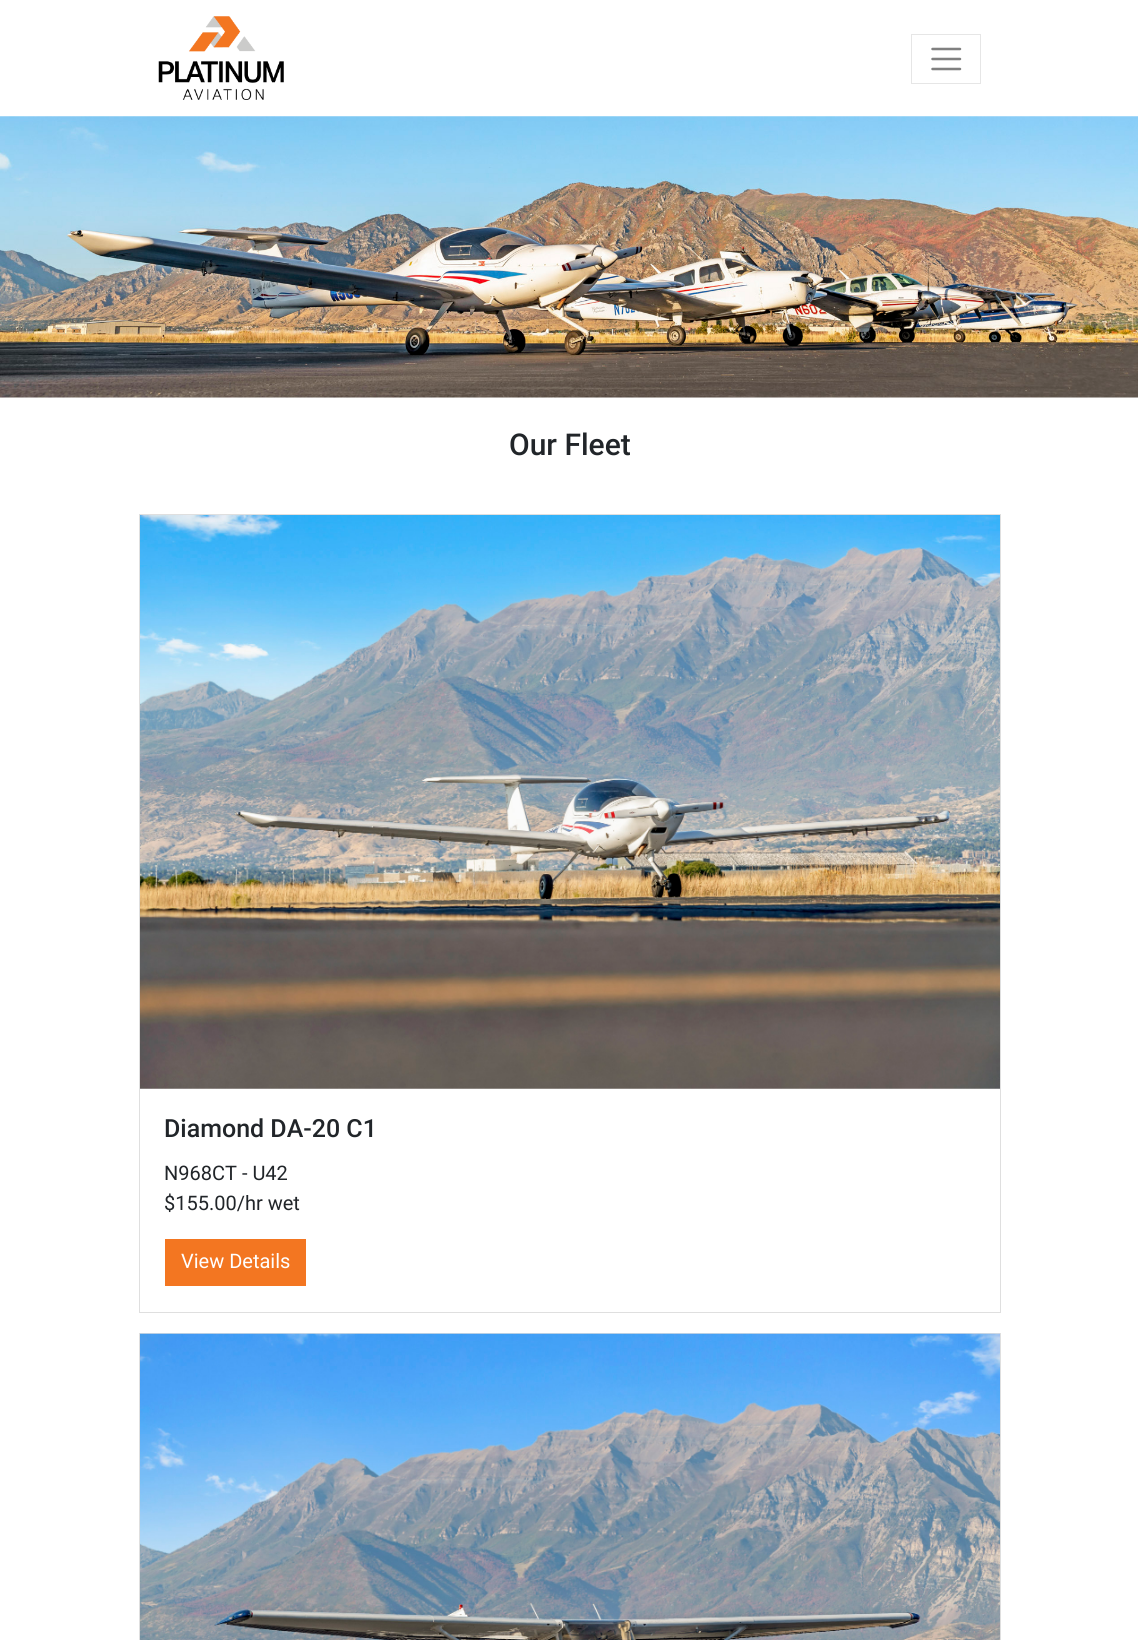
#include <cairo/cairo.h>
#include <math.h>
#include <stddef.h>

static cairo_t *cr;

static void rgb(unsigned color)
{
	cairo_set_source_rgb(cr, (color >> 16) / 255.0, (color >> 8 & 255) / 255.0, (color & 255) / 255.0);
}

static void image(const char *path, double x, double y, double w, double h)
{
	cairo_surface_t *image = cairo_image_surface_create_from_png(path);
	cairo_save(cr);
	cairo_set_source_surface(cr, image, x, y);
	cairo_rectangle(cr, x, y, w, h);
	cairo_fill(cr);
	cairo_restore(cr);
	cairo_surface_destroy(image);
}

int main(void) {
	cairo_surface_t *surface = cairo_image_surface_create(CAIRO_FORMAT_RGB24, 1138, 1640);
	cr = cairo_create(surface);
	cairo_font_options_t *options = cairo_font_options_create();
	cairo_font_options_set_hint_metrics(options, CAIRO_HINT_METRICS_OFF);
	cairo_font_options_set_hint_style(options, CAIRO_HINT_STYLE_NONE);
	cairo_set_font_options(cr, options);
	cairo_set_miter_limit(cr, 4);
	rgb(0xffffff);
	cairo_paint(cr);
	image("img/1.png", 158, 16, 126, 84);
	cairo_rectangle(cr, 911.5, 34.5, 69, 49);
	rgb(0xe6e6e6);
	cairo_set_line_width(cr, 1);
	cairo_stroke(cr);
	cairo_new_path(cr);
	cairo_move_to(cr, 932.5, 49);
	cairo_line_to(cr, 960, 49);
	cairo_move_to(cr, 932.5, 59);
	cairo_line_to(cr, 960, 59);
	cairo_move_to(cr, 932.5, 69);
	cairo_line_to(cr, 960, 69);
	rgb(0x808080);
	cairo_set_line_width(cr, 2.5);
	cairo_set_line_cap(cr, CAIRO_LINE_CAP_ROUND);
	cairo_stroke(cr);
	image("img/2.png", 0, 116, 1138, 282);
	cairo_rectangle(cr, 139.5, 514.5, 861, 798);
	rgb(0xdfdfdf);
	cairo_set_line_width(cr, 1);
	cairo_set_line_cap(cr, CAIRO_LINE_CAP_BUTT);
	cairo_stroke(cr);
	image("img/3.png", 140, 515, 860, 574);
	rgb(0xf37621);
	cairo_rectangle(cr, 165, 1239, 141, 47);
	cairo_fill(cr);
	cairo_rectangle(cr, 139.5, 1333.5, 861, 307);
	rgb(0xdfdfdf);
	cairo_stroke(cr);
	image("img/4.png", 140, 1333, 860, 307);
	cairo_select_font_face(cr, "Roboto Medium", CAIRO_FONT_SLANT_NORMAL, CAIRO_FONT_WEIGHT_NORMAL);
	cairo_set_font_size(cr, 30);
	rgb(0x212529);
	cairo_move_to(cr, 509, 455);
	cairo_show_text(cr, "Our Fleet");
	cairo_set_font_size(cr, 25);
	cairo_move_to(cr, 164, 1137);
	cairo_show_text(cr, "Diamond DA-20 C1");
	cairo_select_font_face(cr, "Roboto", CAIRO_FONT_SLANT_NORMAL, CAIRO_FONT_WEIGHT_NORMAL);
	cairo_set_font_size(cr, 20);
	cairo_move_to(cr, 164, 1180);
	cairo_show_text(cr, "N968CT - U42");
	cairo_move_to(cr, 164, 1210);
	cairo_show_text(cr, "$155.00/hr wet");
	rgb(0xffffff);
	cairo_move_to(cr, 181, 1268);
	cairo_show_text(cr, "View Details");
	cairo_surface_write_to_png(surface, "page.png");
	cairo_font_options_destroy(options);
	cairo_destroy(cr);
	cairo_surface_destroy(surface);
	return 0;
}
